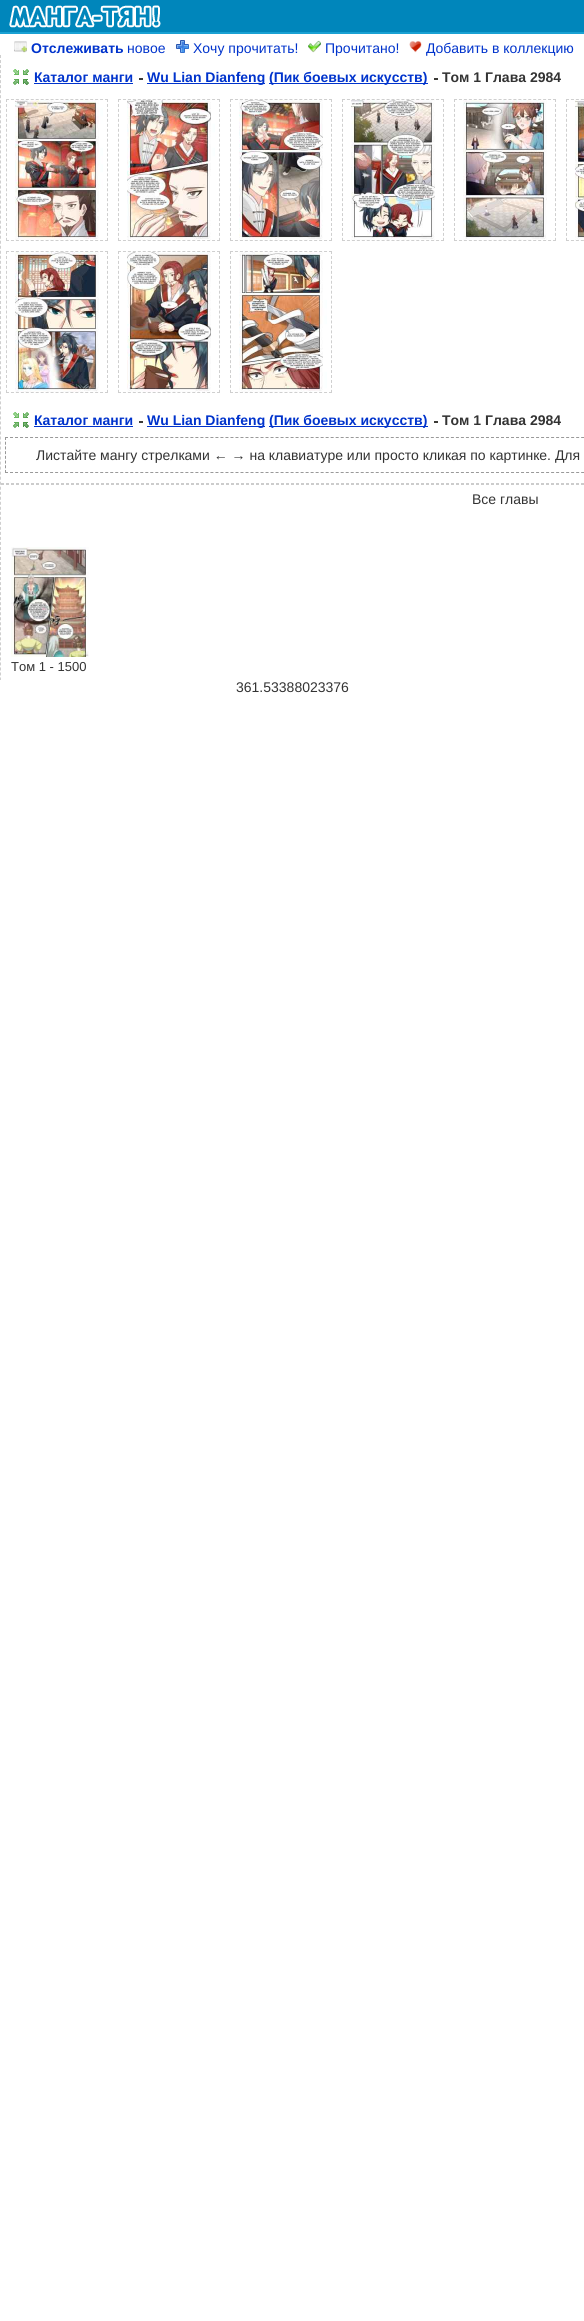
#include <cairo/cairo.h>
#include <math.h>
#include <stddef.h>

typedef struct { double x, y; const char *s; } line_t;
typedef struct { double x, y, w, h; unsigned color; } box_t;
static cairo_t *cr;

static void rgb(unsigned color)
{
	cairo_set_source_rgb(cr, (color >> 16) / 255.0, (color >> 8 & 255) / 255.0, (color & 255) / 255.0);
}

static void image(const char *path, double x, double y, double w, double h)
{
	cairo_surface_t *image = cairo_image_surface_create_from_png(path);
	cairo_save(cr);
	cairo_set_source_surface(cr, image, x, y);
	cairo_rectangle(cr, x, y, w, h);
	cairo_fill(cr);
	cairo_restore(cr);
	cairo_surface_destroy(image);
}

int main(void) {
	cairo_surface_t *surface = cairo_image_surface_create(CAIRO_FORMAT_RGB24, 584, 2321);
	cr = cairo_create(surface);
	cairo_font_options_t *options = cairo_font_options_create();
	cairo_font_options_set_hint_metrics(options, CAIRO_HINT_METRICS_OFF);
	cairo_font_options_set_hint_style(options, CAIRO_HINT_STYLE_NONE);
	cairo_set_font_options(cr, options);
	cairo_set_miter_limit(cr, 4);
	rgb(0xffffff);
	cairo_paint(cr);
	rgb(0x0086bb);
	cairo_rectangle(cr, 0, 0, 584, 32);
	cairo_fill(cr);
	rgb(0x19a1d3);
	cairo_rectangle(cr, 0, 32, 584, 2);
	cairo_fill(cr);
	image("img/1.png", 9, 5, 152, 23);
	image("img/2.png", 14, 41, 13, 12);
	image("img/3.png", 176, 40, 13, 13);
	image("img/4.png", 308, 40, 13, 13);
	image("img/5.png", 409, 40, 13, 13);
	cairo_new_path(cr);
	cairo_move_to(cr, 0.5, 55);
	cairo_line_to(cr, 0.5, 680);
	rgb(0xcfcfcf);
	cairo_set_line_width(cr, 1);
	cairo_set_dash(cr, (double[]){3, 2.02}, 2, 0);
	cairo_stroke(cr);
	image("img/6.png", 13, 69, 16, 16);
	{
		static const box_t items[] = {
			{139, 78, 4, 2, 0x3b3a36},
			{34, 83, 99, 1, 0x0033cc},
			{147, 83, 118, 1, 0x0033cc},
			{434, 78, 4, 2, 0x3b3a36},
			{269, 83, 159, 1, 0x0033cc},
		};
		for (size_t i = 0; i < sizeof items / sizeof *items; i++) {
			rgb(items[i].color);
			cairo_rectangle(cr, items[i].x, items[i].y, items[i].w, items[i].h);
			cairo_fill(cr);
		}
	}
	cairo_new_path(cr);
	cairo_move_to(cr, 6, 99.5);
	cairo_line_to(cr, 108, 99.5);
	rgb(0xcfcfcf);
	cairo_set_dash(cr, (double[]){3, 1.95}, 2, 0);
	cairo_stroke(cr);
	cairo_new_path(cr);
	cairo_move_to(cr, 107.5, 99);
	cairo_line_to(cr, 107.5, 241);
	cairo_set_dash(cr, (double[]){3, 1.96}, 2, 0);
	cairo_stroke(cr);
	cairo_new_path(cr);
	cairo_move_to(cr, 6, 240.5);
	cairo_line_to(cr, 108, 240.5);
	cairo_set_dash(cr, (double[]){3, 1.95}, 2, 0);
	cairo_stroke(cr);
	cairo_new_path(cr);
	cairo_move_to(cr, 6.5, 99);
	cairo_line_to(cr, 6.5, 241);
	cairo_set_dash(cr, (double[]){3, 1.96}, 2, 0);
	cairo_stroke(cr);
	cairo_new_path(cr);
	cairo_move_to(cr, 118, 99.5);
	cairo_line_to(cr, 220, 99.5);
	cairo_set_dash(cr, (double[]){3, 1.95}, 2, 0);
	cairo_stroke(cr);
	cairo_new_path(cr);
	cairo_move_to(cr, 219.5, 99);
	cairo_line_to(cr, 219.5, 241);
	cairo_set_dash(cr, (double[]){3, 1.96}, 2, 0);
	cairo_stroke(cr);
	cairo_new_path(cr);
	cairo_move_to(cr, 118, 240.5);
	cairo_line_to(cr, 220, 240.5);
	cairo_set_dash(cr, (double[]){3, 1.95}, 2, 0);
	cairo_stroke(cr);
	cairo_new_path(cr);
	cairo_move_to(cr, 118.5, 99);
	cairo_line_to(cr, 118.5, 241);
	cairo_set_dash(cr, (double[]){3, 1.96}, 2, 0);
	cairo_stroke(cr);
	cairo_new_path(cr);
	cairo_move_to(cr, 230, 99.5);
	cairo_line_to(cr, 332, 99.5);
	cairo_set_dash(cr, (double[]){3, 1.95}, 2, 0);
	cairo_stroke(cr);
	cairo_new_path(cr);
	cairo_move_to(cr, 331.5, 99);
	cairo_line_to(cr, 331.5, 241);
	cairo_set_dash(cr, (double[]){3, 1.96}, 2, 0);
	cairo_stroke(cr);
	cairo_new_path(cr);
	cairo_move_to(cr, 230, 240.5);
	cairo_line_to(cr, 332, 240.5);
	cairo_set_dash(cr, (double[]){3, 1.95}, 2, 0);
	cairo_stroke(cr);
	cairo_new_path(cr);
	cairo_move_to(cr, 230.5, 99);
	cairo_line_to(cr, 230.5, 241);
	cairo_set_dash(cr, (double[]){3, 1.96}, 2, 0);
	cairo_stroke(cr);
	cairo_new_path(cr);
	cairo_move_to(cr, 342, 99.5);
	cairo_line_to(cr, 444, 99.5);
	cairo_set_dash(cr, (double[]){3, 1.95}, 2, 0);
	cairo_stroke(cr);
	cairo_new_path(cr);
	cairo_move_to(cr, 443.5, 99);
	cairo_line_to(cr, 443.5, 241);
	cairo_set_dash(cr, (double[]){3, 1.96}, 2, 0);
	cairo_stroke(cr);
	cairo_new_path(cr);
	cairo_move_to(cr, 342, 240.5);
	cairo_line_to(cr, 444, 240.5);
	cairo_set_dash(cr, (double[]){3, 1.95}, 2, 0);
	cairo_stroke(cr);
	cairo_new_path(cr);
	cairo_move_to(cr, 342.5, 99);
	cairo_line_to(cr, 342.5, 241);
	cairo_set_dash(cr, (double[]){3, 1.96}, 2, 0);
	cairo_stroke(cr);
	cairo_new_path(cr);
	cairo_move_to(cr, 454, 99.5);
	cairo_line_to(cr, 556, 99.5);
	cairo_set_dash(cr, (double[]){3, 1.95}, 2, 0);
	cairo_stroke(cr);
	cairo_new_path(cr);
	cairo_move_to(cr, 555.5, 99);
	cairo_line_to(cr, 555.5, 241);
	cairo_set_dash(cr, (double[]){3, 1.96}, 2, 0);
	cairo_stroke(cr);
	cairo_new_path(cr);
	cairo_move_to(cr, 454, 240.5);
	cairo_line_to(cr, 556, 240.5);
	cairo_set_dash(cr, (double[]){3, 1.95}, 2, 0);
	cairo_stroke(cr);
	cairo_new_path(cr);
	cairo_move_to(cr, 454.5, 99);
	cairo_line_to(cr, 454.5, 241);
	cairo_set_dash(cr, (double[]){3, 1.96}, 2, 0);
	cairo_stroke(cr);
	cairo_new_path(cr);
	cairo_move_to(cr, 566, 99.5);
	cairo_line_to(cr, 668, 99.5);
	cairo_set_dash(cr, (double[]){3, 1.95}, 2, 0);
	cairo_stroke(cr);
	image("img/7.png", 15, 100, 88, 140);
	image("img/8.png", 127, 100, 88, 140);
	image("img/9.png", 239, 100, 84, 140);
	image("img/10.png", 351, 100, 84, 140);
	image("img/11.png", 463, 100, 84, 140);
	cairo_new_path(cr);
	cairo_move_to(cr, 566, 240.5);
	cairo_line_to(cr, 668, 240.5);
	cairo_stroke(cr);
	cairo_new_path(cr);
	cairo_move_to(cr, 566.5, 99);
	cairo_line_to(cr, 566.5, 241);
	cairo_set_dash(cr, (double[]){3, 1.96}, 2, 0);
	cairo_stroke(cr);
	image("img/12.png", 575, 100, 9, 140);
	cairo_new_path(cr);
	cairo_move_to(cr, 6, 251.5);
	cairo_line_to(cr, 108, 251.5);
	cairo_set_dash(cr, (double[]){3, 1.95}, 2, 0);
	cairo_stroke(cr);
	cairo_new_path(cr);
	cairo_move_to(cr, 107.5, 251);
	cairo_line_to(cr, 107.5, 393);
	cairo_set_dash(cr, (double[]){3, 1.96}, 2, 0);
	cairo_stroke(cr);
	cairo_new_path(cr);
	cairo_move_to(cr, 6, 392.5);
	cairo_line_to(cr, 108, 392.5);
	cairo_set_dash(cr, (double[]){3, 1.95}, 2, 0);
	cairo_stroke(cr);
	cairo_new_path(cr);
	cairo_move_to(cr, 6.5, 251);
	cairo_line_to(cr, 6.5, 393);
	cairo_set_dash(cr, (double[]){3, 1.96}, 2, 0);
	cairo_stroke(cr);
	cairo_new_path(cr);
	cairo_move_to(cr, 118, 251.5);
	cairo_line_to(cr, 220, 251.5);
	cairo_set_dash(cr, (double[]){3, 1.95}, 2, 0);
	cairo_stroke(cr);
	cairo_new_path(cr);
	cairo_move_to(cr, 219.5, 251);
	cairo_line_to(cr, 219.5, 393);
	cairo_set_dash(cr, (double[]){3, 1.96}, 2, 0);
	cairo_stroke(cr);
	cairo_new_path(cr);
	cairo_move_to(cr, 118, 392.5);
	cairo_line_to(cr, 220, 392.5);
	cairo_set_dash(cr, (double[]){3, 1.95}, 2, 0);
	cairo_stroke(cr);
	cairo_new_path(cr);
	cairo_move_to(cr, 118.5, 251);
	cairo_line_to(cr, 118.5, 393);
	cairo_set_dash(cr, (double[]){3, 1.96}, 2, 0);
	cairo_stroke(cr);
	cairo_new_path(cr);
	cairo_move_to(cr, 230, 251.5);
	cairo_line_to(cr, 332, 251.5);
	cairo_set_dash(cr, (double[]){3, 1.95}, 2, 0);
	cairo_stroke(cr);
	image("img/13.png", 15, 252, 84, 140);
	image("img/14.png", 127, 252, 84, 140);
	cairo_new_path(cr);
	cairo_move_to(cr, 331.5, 251);
	cairo_line_to(cr, 331.5, 393);
	cairo_set_dash(cr, (double[]){3, 1.96}, 2, 0);
	cairo_stroke(cr);
	cairo_new_path(cr);
	cairo_move_to(cr, 230, 392.5);
	cairo_line_to(cr, 332, 392.5);
	cairo_set_dash(cr, (double[]){3, 1.95}, 2, 0);
	cairo_stroke(cr);
	cairo_new_path(cr);
	cairo_move_to(cr, 230.5, 251);
	cairo_line_to(cr, 230.5, 393);
	cairo_set_dash(cr, (double[]){3, 1.96}, 2, 0);
	cairo_stroke(cr);
	image("img/15.png", 239, 252, 88, 140);
	image("img/6.png", 13, 412, 16, 16);
	{
		static const box_t items[] = {
			{139, 421, 4, 2, 0x3b3a36},
			{34, 426, 99, 1, 0x0033cc},
			{147, 426, 118, 1, 0x0033cc},
			{434, 421, 4, 2, 0x3b3a36},
			{269, 426, 159, 1, 0x0033cc},
		};
		for (size_t i = 0; i < sizeof items / sizeof *items; i++) {
			rgb(items[i].color);
			cairo_rectangle(cr, items[i].x, items[i].y, items[i].w, items[i].h);
			cairo_fill(cr);
		}
	}
	cairo_new_path(cr);
	cairo_move_to(cr, 5, 437.5);
	cairo_line_to(cr, 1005, 437.5);
	rgb(0x999999);
	cairo_set_dash(cr, (double[]){3, 2.01}, 2, 0);
	cairo_stroke(cr);
	cairo_new_path(cr);
	cairo_move_to(cr, 5, 472.5);
	cairo_line_to(cr, 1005, 472.5);
	cairo_stroke(cr);
	cairo_new_path(cr);
	cairo_move_to(cr, 5.5, 437);
	cairo_line_to(cr, 5.5, 473);
	cairo_set_dash(cr, (double[]){3, 1.71}, 2, 0);
	cairo_stroke(cr);
	cairo_new_path(cr);
	cairo_move_to(cr, 1, 483.5);
	cairo_line_to(cr, 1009, 483.5);
	rgb(0xcccccc);
	cairo_set_dash(cr, (double[]){3, 2}, 2, 0);
	cairo_stroke(cr);
	cairo_new_path(cr);
	cairo_move_to(cr, 1, 484.5);
	cairo_line_to(cr, 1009, 484.5);
	cairo_stroke(cr);
	image("img/16.png", 11, 547, 78, 110);
	cairo_select_font_face(cr, "Liberation Sans", CAIRO_FONT_SLANT_NORMAL, CAIRO_FONT_WEIGHT_BOLD);
	cairo_set_font_size(cr, 14);
	rgb(0x0033cc);
	cairo_move_to(cr, 31, 53);
	cairo_show_text(cr, "Отслеживать");
	cairo_select_font_face(cr, "Liberation Sans", CAIRO_FONT_SLANT_NORMAL, CAIRO_FONT_WEIGHT_NORMAL);
	{
		static const line_t items[] = {
			{127, 53, "новое"},
			{193, 53, "Хочу прочитать!"},
			{325, 53, "Прочитано!"},
			{426, 53, "Добавить в коллекцию"},
		};
		for (size_t i = 0; i < sizeof items / sizeof *items; i++) {
			cairo_move_to(cr, items[i].x, items[i].y);
			cairo_show_text(cr, items[i].s);
		}
	}
	cairo_select_font_face(cr, "Liberation Sans", CAIRO_FONT_SLANT_NORMAL, CAIRO_FONT_WEIGHT_BOLD);
	{
		static const line_t items[] = {
			{34, 82, "Каталог манги"},
			{147, 82, "Wu Lian Dianfeng"},
			{269, 82, "(Пик боевых искусств)"},
		};
		for (size_t i = 0; i < sizeof items / sizeof *items; i++) {
			cairo_move_to(cr, items[i].x, items[i].y);
			cairo_show_text(cr, items[i].s);
		}
	}
	rgb(0x333333);
	cairo_move_to(cr, 442, 82);
	cairo_show_text(cr, "Том 1 Глава 2984");
	rgb(0x0033cc);
	{
		static const line_t items[] = {
			{34, 425, "Каталог манги"},
			{147, 425, "Wu Lian Dianfeng"},
			{269, 425, "(Пик боевых искусств)"},
		};
		for (size_t i = 0; i < sizeof items / sizeof *items; i++) {
			cairo_move_to(cr, items[i].x, items[i].y);
			cairo_show_text(cr, items[i].s);
		}
	}
	rgb(0x333333);
	cairo_move_to(cr, 442, 425);
	cairo_show_text(cr, "Том 1 Глава 2984");
	cairo_select_font_face(cr, "Liberation Sans", CAIRO_FONT_SLANT_NORMAL, CAIRO_FONT_WEIGHT_NORMAL);
	cairo_move_to(cr, 36, 460);
	cairo_show_text(cr, "Листайте мангу стрелками ← → на клавиатуре или просто кликая по картинке. Для");
	cairo_move_to(cr, 472, 504);
	cairo_show_text(cr, "Все главы");
	cairo_set_font_size(cr, 13);
	cairo_move_to(cr, 11, 671);
	cairo_show_text(cr, "Том 1 - 1500");
	cairo_set_font_size(cr, 14);
	cairo_move_to(cr, 236, 692);
	cairo_show_text(cr, "361.53388023376");
	cairo_surface_write_to_png(surface, "page.png");
	cairo_font_options_destroy(options);
	cairo_destroy(cr);
	cairo_surface_destroy(surface);
	return 0;
}
